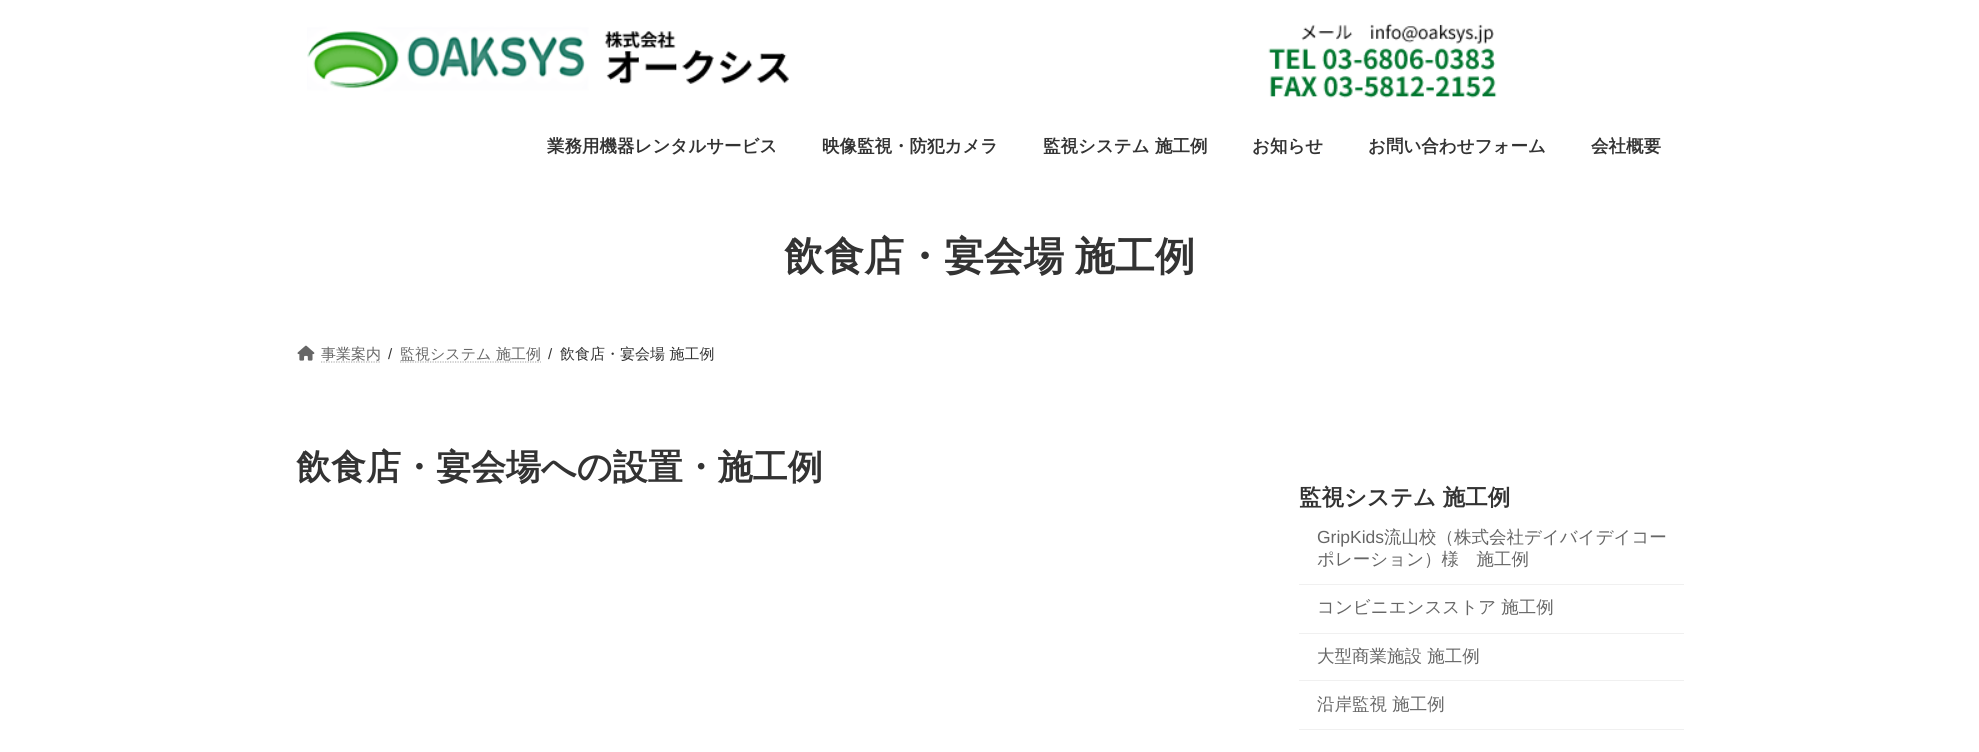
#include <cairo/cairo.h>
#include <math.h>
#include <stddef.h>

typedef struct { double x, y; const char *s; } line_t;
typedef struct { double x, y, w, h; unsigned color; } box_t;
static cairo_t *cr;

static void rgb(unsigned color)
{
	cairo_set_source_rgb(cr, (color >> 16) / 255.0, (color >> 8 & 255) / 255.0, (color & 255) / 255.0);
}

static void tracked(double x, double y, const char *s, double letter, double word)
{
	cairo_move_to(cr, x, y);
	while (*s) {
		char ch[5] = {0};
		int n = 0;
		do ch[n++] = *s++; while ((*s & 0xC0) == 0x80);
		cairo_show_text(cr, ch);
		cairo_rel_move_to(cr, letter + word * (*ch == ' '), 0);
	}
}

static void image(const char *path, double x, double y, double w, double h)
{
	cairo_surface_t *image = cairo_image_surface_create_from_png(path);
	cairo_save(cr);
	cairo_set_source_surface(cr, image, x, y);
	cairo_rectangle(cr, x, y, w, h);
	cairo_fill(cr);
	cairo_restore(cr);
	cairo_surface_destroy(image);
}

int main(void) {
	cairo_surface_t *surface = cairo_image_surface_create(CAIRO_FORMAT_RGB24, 1979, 752);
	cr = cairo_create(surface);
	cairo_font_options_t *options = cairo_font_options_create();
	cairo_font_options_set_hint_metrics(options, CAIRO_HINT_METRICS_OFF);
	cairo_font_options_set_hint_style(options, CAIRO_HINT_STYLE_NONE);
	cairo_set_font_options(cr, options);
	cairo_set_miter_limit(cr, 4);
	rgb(0xffffff);
	cairo_paint(cr);
	image("img/1.png", 307, 23, 1190, 75);
	image("img/2.png", 297, 345, 18, 16);
	cairo_new_path(cr);
	cairo_move_to(cr, 321, 362);
	cairo_line_to(cr, 381, 362);
	rgb(0xb3b3b3);
	cairo_set_line_width(cr, 1.2);
	cairo_set_dash(cr, (double[]){1.25, 1.25}, 2, 0);
	cairo_stroke(cr);
	cairo_new_path(cr);
	cairo_move_to(cr, 400, 362);
	cairo_line_to(cr, 541, 362);
	cairo_stroke(cr);
	{
		static const box_t items[] = {
			{1299, 584, 385, 1, 0xf0f0f0},
			{1299, 633, 385, 1, 0xf0f0f0},
			{1299, 680, 385, 1, 0xf0f0f0},
			{1299, 729, 385, 1, 0xf0f0f0},
		};
		for (size_t i = 0; i < sizeof items / sizeof *items; i++) {
			rgb(items[i].color);
			cairo_rectangle(cr, items[i].x, items[i].y, items[i].w, items[i].h);
			cairo_fill(cr);
		}
	}
	cairo_select_font_face(cr, "WenQuanYi Zen Hei", CAIRO_FONT_SLANT_NORMAL, CAIRO_FONT_WEIGHT_BOLD);
	cairo_set_font_size(cr, 17.5);
	rgb(0x333333);
	{
		static const line_t items[] = {
			{547, 152, "業務用機器レンタルサービス"},
			{822, 152, "映像監視・防犯カメラ"},
			{1043, 152, "監視システム 施工例"},
			{1252, 152, "お知らせ"},
			{1368, 152, "お問い合わせフォーム"},
			{1591, 152, "会社概要"},
		};
		for (size_t i = 0; i < sizeof items / sizeof *items; i++) {
			cairo_move_to(cr, items[i].x, items[i].y);
			cairo_show_text(cr, items[i].s);
		}
	}
	cairo_set_font_size(cr, 40);
	tracked(784, 270, "飲食店・宴会場 施工例", 0, -1);
	cairo_select_font_face(cr, "WenQuanYi Zen Hei Medium", CAIRO_FONT_SLANT_NORMAL, CAIRO_FONT_WEIGHT_NORMAL);
	cairo_set_font_size(cr, 15);
	rgb(0x666666);
	cairo_move_to(cr, 321, 359);
	cairo_show_text(cr, "事業案内");
	cairo_select_font_face(cr, "Liberation Sans", CAIRO_FONT_SLANT_NORMAL, CAIRO_FONT_WEIGHT_NORMAL);
	rgb(0x333333);
	cairo_move_to(cr, 388, 359);
	cairo_show_text(cr, "/");
	cairo_select_font_face(cr, "WenQuanYi Zen Hei Medium", CAIRO_FONT_SLANT_NORMAL, CAIRO_FONT_WEIGHT_NORMAL);
	rgb(0x666666);
	cairo_move_to(cr, 400, 359);
	cairo_show_text(cr, "監視システム 施工例");
	cairo_select_font_face(cr, "Liberation Sans", CAIRO_FONT_SLANT_NORMAL, CAIRO_FONT_WEIGHT_NORMAL);
	rgb(0x333333);
	cairo_move_to(cr, 548, 359);
	cairo_show_text(cr, "/");
	cairo_select_font_face(cr, "WenQuanYi Zen Hei Medium", CAIRO_FONT_SLANT_NORMAL, CAIRO_FONT_WEIGHT_NORMAL);
	cairo_move_to(cr, 560, 359);
	cairo_show_text(cr, "飲食店・宴会場 施工例");
	cairo_select_font_face(cr, "WenQuanYi Zen Hei", CAIRO_FONT_SLANT_NORMAL, CAIRO_FONT_WEIGHT_BOLD);
	cairo_set_font_size(cr, 35);
	cairo_move_to(cr, 296, 479);
	cairo_show_text(cr, "飲食店・宴会場への設置・施工例");
	cairo_set_font_size(cr, 22.5);
	cairo_move_to(cr, 1299, 505);
	cairo_show_text(cr, "監視システム 施工例");
	cairo_select_font_face(cr, "Liberation Sans", CAIRO_FONT_SLANT_NORMAL, CAIRO_FONT_WEIGHT_NORMAL);
	cairo_set_font_size(cr, 17.5);
	rgb(0x666666);
	cairo_move_to(cr, 1317, 543);
	cairo_show_text(cr, "GripKids");
	cairo_select_font_face(cr, "WenQuanYi Zen Hei Medium", CAIRO_FONT_SLANT_NORMAL, CAIRO_FONT_WEIGHT_NORMAL);
	{
		static const line_t items[] = {
			{1384, 543, "流山校（株式会社デイバイデイコー"},
			{1317, 565, "ポレーション）様　施工例"},
			{1317, 613, "コンビニエンスストア 施工例"},
			{1317, 662, "大型商業施設 施工例"},
			{1317, 710, "沿岸監視 施工例"},
		};
		for (size_t i = 0; i < sizeof items / sizeof *items; i++) {
			cairo_move_to(cr, items[i].x, items[i].y);
			cairo_show_text(cr, items[i].s);
		}
	}
	cairo_surface_write_to_png(surface, "page.png");
	cairo_font_options_destroy(options);
	cairo_destroy(cr);
	cairo_surface_destroy(surface);
	return 0;
}
